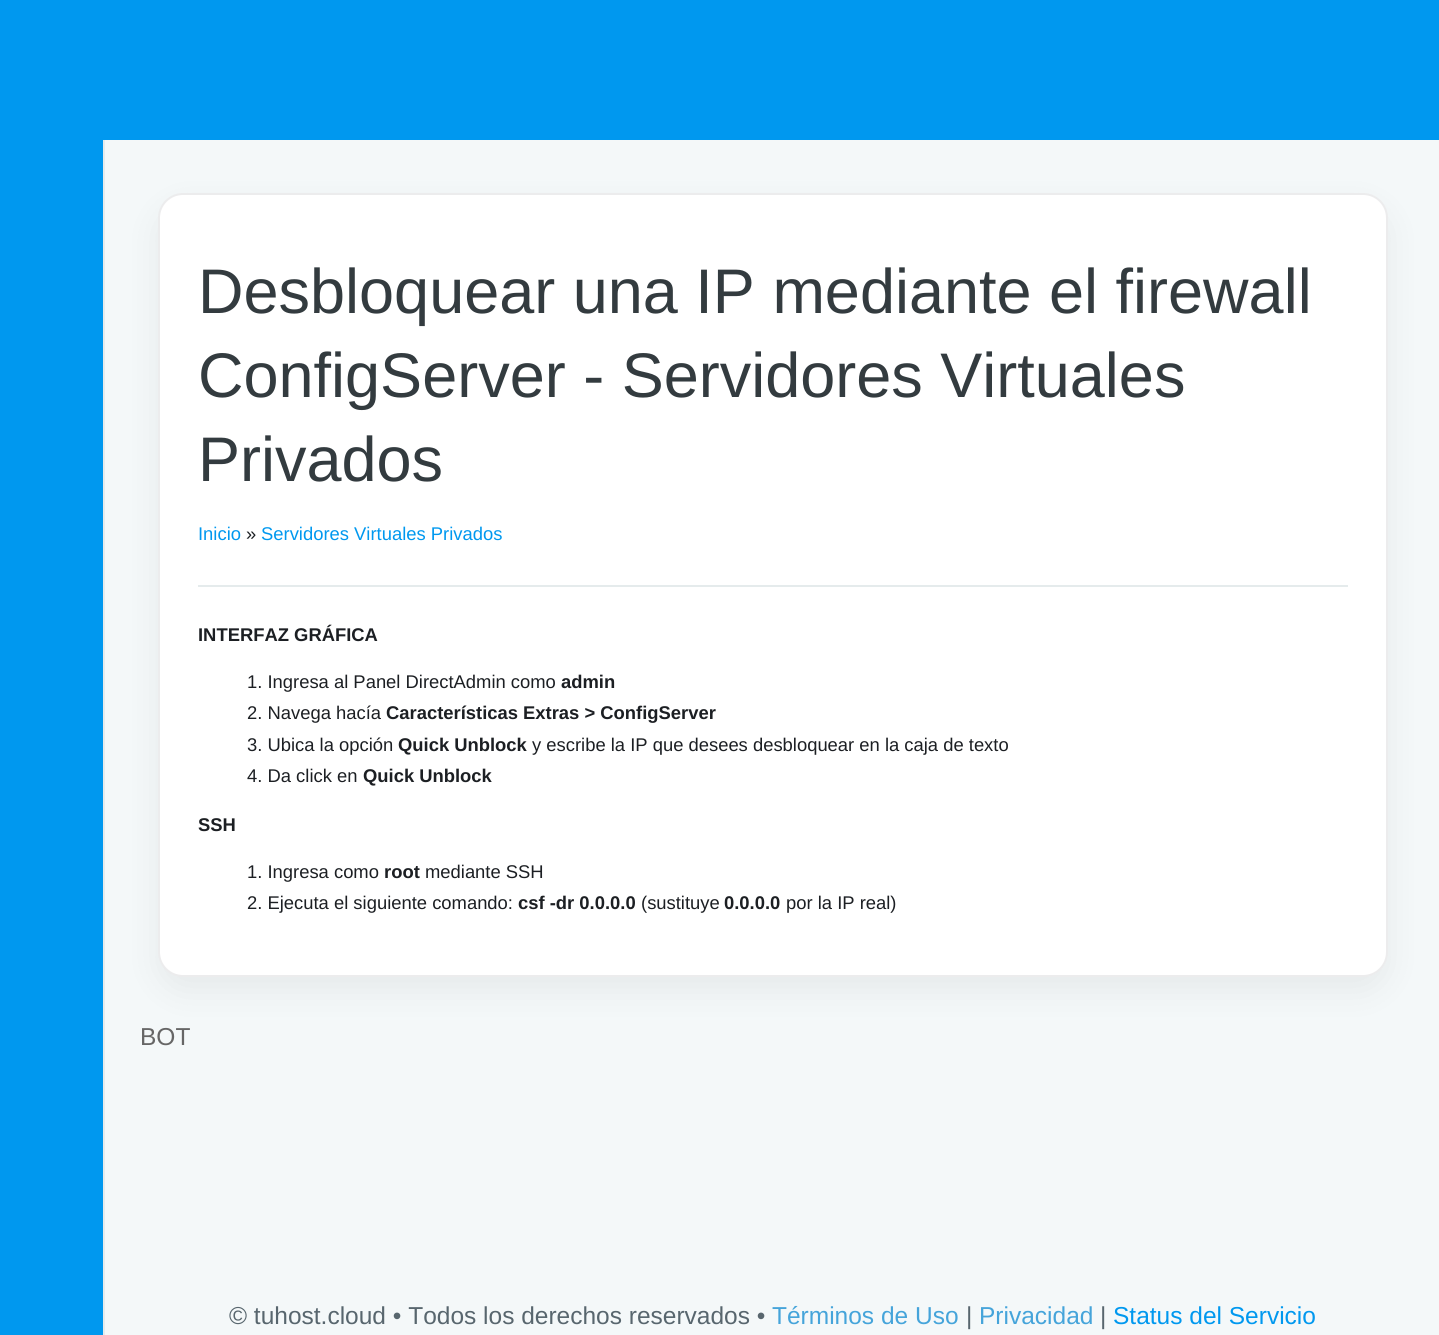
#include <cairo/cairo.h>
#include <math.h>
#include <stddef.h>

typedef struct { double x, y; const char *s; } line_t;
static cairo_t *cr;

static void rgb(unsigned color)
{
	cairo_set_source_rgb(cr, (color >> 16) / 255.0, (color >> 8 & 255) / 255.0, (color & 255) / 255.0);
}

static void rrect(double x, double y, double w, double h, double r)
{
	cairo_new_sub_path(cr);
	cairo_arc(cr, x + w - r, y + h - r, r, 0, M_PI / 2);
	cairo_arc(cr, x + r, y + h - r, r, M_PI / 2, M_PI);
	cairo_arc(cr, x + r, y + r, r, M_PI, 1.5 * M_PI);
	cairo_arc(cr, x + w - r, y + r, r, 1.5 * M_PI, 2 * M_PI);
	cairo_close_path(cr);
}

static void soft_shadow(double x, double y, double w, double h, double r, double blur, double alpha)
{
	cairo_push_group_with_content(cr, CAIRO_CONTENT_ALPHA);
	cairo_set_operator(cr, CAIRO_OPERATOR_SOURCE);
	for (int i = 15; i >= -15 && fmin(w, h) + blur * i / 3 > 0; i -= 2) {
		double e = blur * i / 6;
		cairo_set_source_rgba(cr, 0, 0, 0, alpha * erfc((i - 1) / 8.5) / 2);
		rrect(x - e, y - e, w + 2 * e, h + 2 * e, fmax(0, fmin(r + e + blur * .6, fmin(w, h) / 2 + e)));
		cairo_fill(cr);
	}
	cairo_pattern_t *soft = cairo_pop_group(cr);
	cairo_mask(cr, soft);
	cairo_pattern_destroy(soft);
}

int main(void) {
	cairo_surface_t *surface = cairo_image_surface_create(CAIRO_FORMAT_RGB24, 1439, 1335);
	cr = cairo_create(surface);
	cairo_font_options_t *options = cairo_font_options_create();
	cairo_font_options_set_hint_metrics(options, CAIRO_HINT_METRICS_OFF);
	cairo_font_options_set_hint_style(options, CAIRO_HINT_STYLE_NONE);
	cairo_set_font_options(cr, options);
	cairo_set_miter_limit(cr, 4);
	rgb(0xf4f8f9);
	cairo_paint(cr);
	rgb(0x0098ef);
	cairo_rectangle(cr, 0, 0, 1439, 140);
	cairo_fill(cr);
	cairo_rectangle(cr, 0, 140, 103, 1195);
	cairo_fill(cr);
	rgb(0x000000);
	soft_shadow(158, 207, 1230, 784, 25, 17.5, 0.06);
	rgb(0xe5ebec);
	cairo_rectangle(cr, 103, 140, 2, 1195);
	cairo_fill(cr);
	rgb(0xffffff);
	rrect(158, 193, 1230, 784, 25);
	cairo_fill(cr);
	rrect(159, 194, 1228, 782, 24);
	cairo_set_source_rgba(cr, 0.063, 0.094, 0.125, 0.08);
	cairo_stroke(cr);
	rgb(0xe5ebec);
	cairo_rectangle(cr, 198, 585, 1150, 2);
	cairo_fill(cr);
	cairo_select_font_face(cr, "Liberation Sans", CAIRO_FONT_SLANT_NORMAL, CAIRO_FONT_WEIGHT_NORMAL);
	cairo_set_font_size(cr, 63);
	rgb(0x333b3f);
	{
		static const line_t items[] = {
			{198, 313, "Desbloquear una IP mediante el firewall"},
			{198, 397, "ConfigServer - Servidores Virtuales"},
			{198, 481, "Privados"},
		};
		for (size_t i = 0; i < sizeof items / sizeof *items; i++) {
			cairo_move_to(cr, items[i].x, items[i].y);
			cairo_show_text(cr, items[i].s);
		}
	}
	cairo_set_font_size(cr, 18.4);
	rgb(0x0098ef);
	cairo_move_to(cr, 198, 540);
	cairo_show_text(cr, "Inicio");
	rgb(0x1c1f23);
	cairo_move_to(cr, 246, 540);
	cairo_show_text(cr, "»");
	rgb(0x0098ef);
	cairo_move_to(cr, 261, 540);
	cairo_show_text(cr, "Servidores Virtuales Privados");
	cairo_select_font_face(cr, "Liberation Sans", CAIRO_FONT_SLANT_NORMAL, CAIRO_FONT_WEIGHT_BOLD);
	rgb(0x1c1f23);
	cairo_move_to(cr, 198, 641);
	cairo_show_text(cr, "INTERFAZ GRÁFICA");
	cairo_select_font_face(cr, "Liberation Sans", CAIRO_FONT_SLANT_NORMAL, CAIRO_FONT_WEIGHT_NORMAL);
	cairo_move_to(cr, 247, 688);
	cairo_show_text(cr, "1. Ingresa al Panel DirectAdmin como");
	cairo_select_font_face(cr, "Liberation Sans", CAIRO_FONT_SLANT_NORMAL, CAIRO_FONT_WEIGHT_BOLD);
	cairo_move_to(cr, 561, 688);
	cairo_show_text(cr, "admin");
	cairo_select_font_face(cr, "Liberation Sans", CAIRO_FONT_SLANT_NORMAL, CAIRO_FONT_WEIGHT_NORMAL);
	cairo_move_to(cr, 247, 719);
	cairo_show_text(cr, "2. Navega hacía");
	cairo_select_font_face(cr, "Liberation Sans", CAIRO_FONT_SLANT_NORMAL, CAIRO_FONT_WEIGHT_BOLD);
	cairo_move_to(cr, 386, 719);
	cairo_show_text(cr, "Características Extras > ConfigServer");
	cairo_select_font_face(cr, "Liberation Sans", CAIRO_FONT_SLANT_NORMAL, CAIRO_FONT_WEIGHT_NORMAL);
	cairo_move_to(cr, 247, 751);
	cairo_show_text(cr, "3. Ubica la opción");
	cairo_select_font_face(cr, "Liberation Sans", CAIRO_FONT_SLANT_NORMAL, CAIRO_FONT_WEIGHT_BOLD);
	cairo_move_to(cr, 398, 751);
	cairo_show_text(cr, "Quick Unblock");
	cairo_select_font_face(cr, "Liberation Sans", CAIRO_FONT_SLANT_NORMAL, CAIRO_FONT_WEIGHT_NORMAL);
	cairo_move_to(cr, 532, 751);
	cairo_show_text(cr, "y escribe la IP que desees desbloquear en la caja de texto");
	cairo_move_to(cr, 247, 782);
	cairo_show_text(cr, "4. Da click en");
	cairo_select_font_face(cr, "Liberation Sans", CAIRO_FONT_SLANT_NORMAL, CAIRO_FONT_WEIGHT_BOLD);
	cairo_move_to(cr, 363, 782);
	cairo_show_text(cr, "Quick Unblock");
	cairo_move_to(cr, 198, 831);
	cairo_show_text(cr, "SSH");
	cairo_select_font_face(cr, "Liberation Sans", CAIRO_FONT_SLANT_NORMAL, CAIRO_FONT_WEIGHT_NORMAL);
	cairo_move_to(cr, 247, 878);
	cairo_show_text(cr, "1. Ingresa como");
	cairo_select_font_face(cr, "Liberation Sans", CAIRO_FONT_SLANT_NORMAL, CAIRO_FONT_WEIGHT_BOLD);
	cairo_move_to(cr, 384, 878);
	cairo_show_text(cr, "root");
	cairo_select_font_face(cr, "Liberation Sans", CAIRO_FONT_SLANT_NORMAL, CAIRO_FONT_WEIGHT_NORMAL);
	cairo_move_to(cr, 425, 878);
	cairo_show_text(cr, "mediante SSH");
	cairo_move_to(cr, 247, 909);
	cairo_show_text(cr, "2. Ejecuta el siguiente comando:");
	cairo_select_font_face(cr, "Liberation Sans", CAIRO_FONT_SLANT_NORMAL, CAIRO_FONT_WEIGHT_BOLD);
	cairo_move_to(cr, 518, 909);
	cairo_show_text(cr, "csf -dr 0.0.0.0");
	cairo_select_font_face(cr, "Liberation Sans", CAIRO_FONT_SLANT_NORMAL, CAIRO_FONT_WEIGHT_NORMAL);
	cairo_move_to(cr, 641, 909);
	cairo_show_text(cr, "(sustituye");
	cairo_select_font_face(cr, "Liberation Sans", CAIRO_FONT_SLANT_NORMAL, CAIRO_FONT_WEIGHT_BOLD);
	cairo_move_to(cr, 724, 909);
	cairo_show_text(cr, "0.0.0.0");
	cairo_select_font_face(cr, "Liberation Sans", CAIRO_FONT_SLANT_NORMAL, CAIRO_FONT_WEIGHT_NORMAL);
	cairo_move_to(cr, 786, 909);
	cairo_show_text(cr, "por la IP real)");
	cairo_set_font_size(cr, 24.5);
	rgb(0x666666);
	cairo_move_to(cr, 140, 1045);
	cairo_show_text(cr, "BOT");
	rgb(0x58666e);
	cairo_move_to(cr, 229, 1324);
	cairo_show_text(cr, "© tuhost.cloud • Todos los derechos reservados •");
	rgb(0x45a4da);
	cairo_move_to(cr, 772, 1324);
	cairo_show_text(cr, "Términos de Uso");
	rgb(0x58666e);
	cairo_move_to(cr, 966, 1324);
	cairo_show_text(cr, "|");
	rgb(0x45a4da);
	cairo_move_to(cr, 979, 1324);
	cairo_show_text(cr, "Privacidad");
	rgb(0x58666e);
	cairo_move_to(cr, 1100, 1324);
	cairo_show_text(cr, "|");
	rgb(0x0098ef);
	cairo_move_to(cr, 1113, 1324);
	cairo_show_text(cr, "Status del Servicio");
	cairo_surface_write_to_png(surface, "page.png");
	cairo_font_options_destroy(options);
	cairo_destroy(cr);
	cairo_surface_destroy(surface);
	return 0;
}
